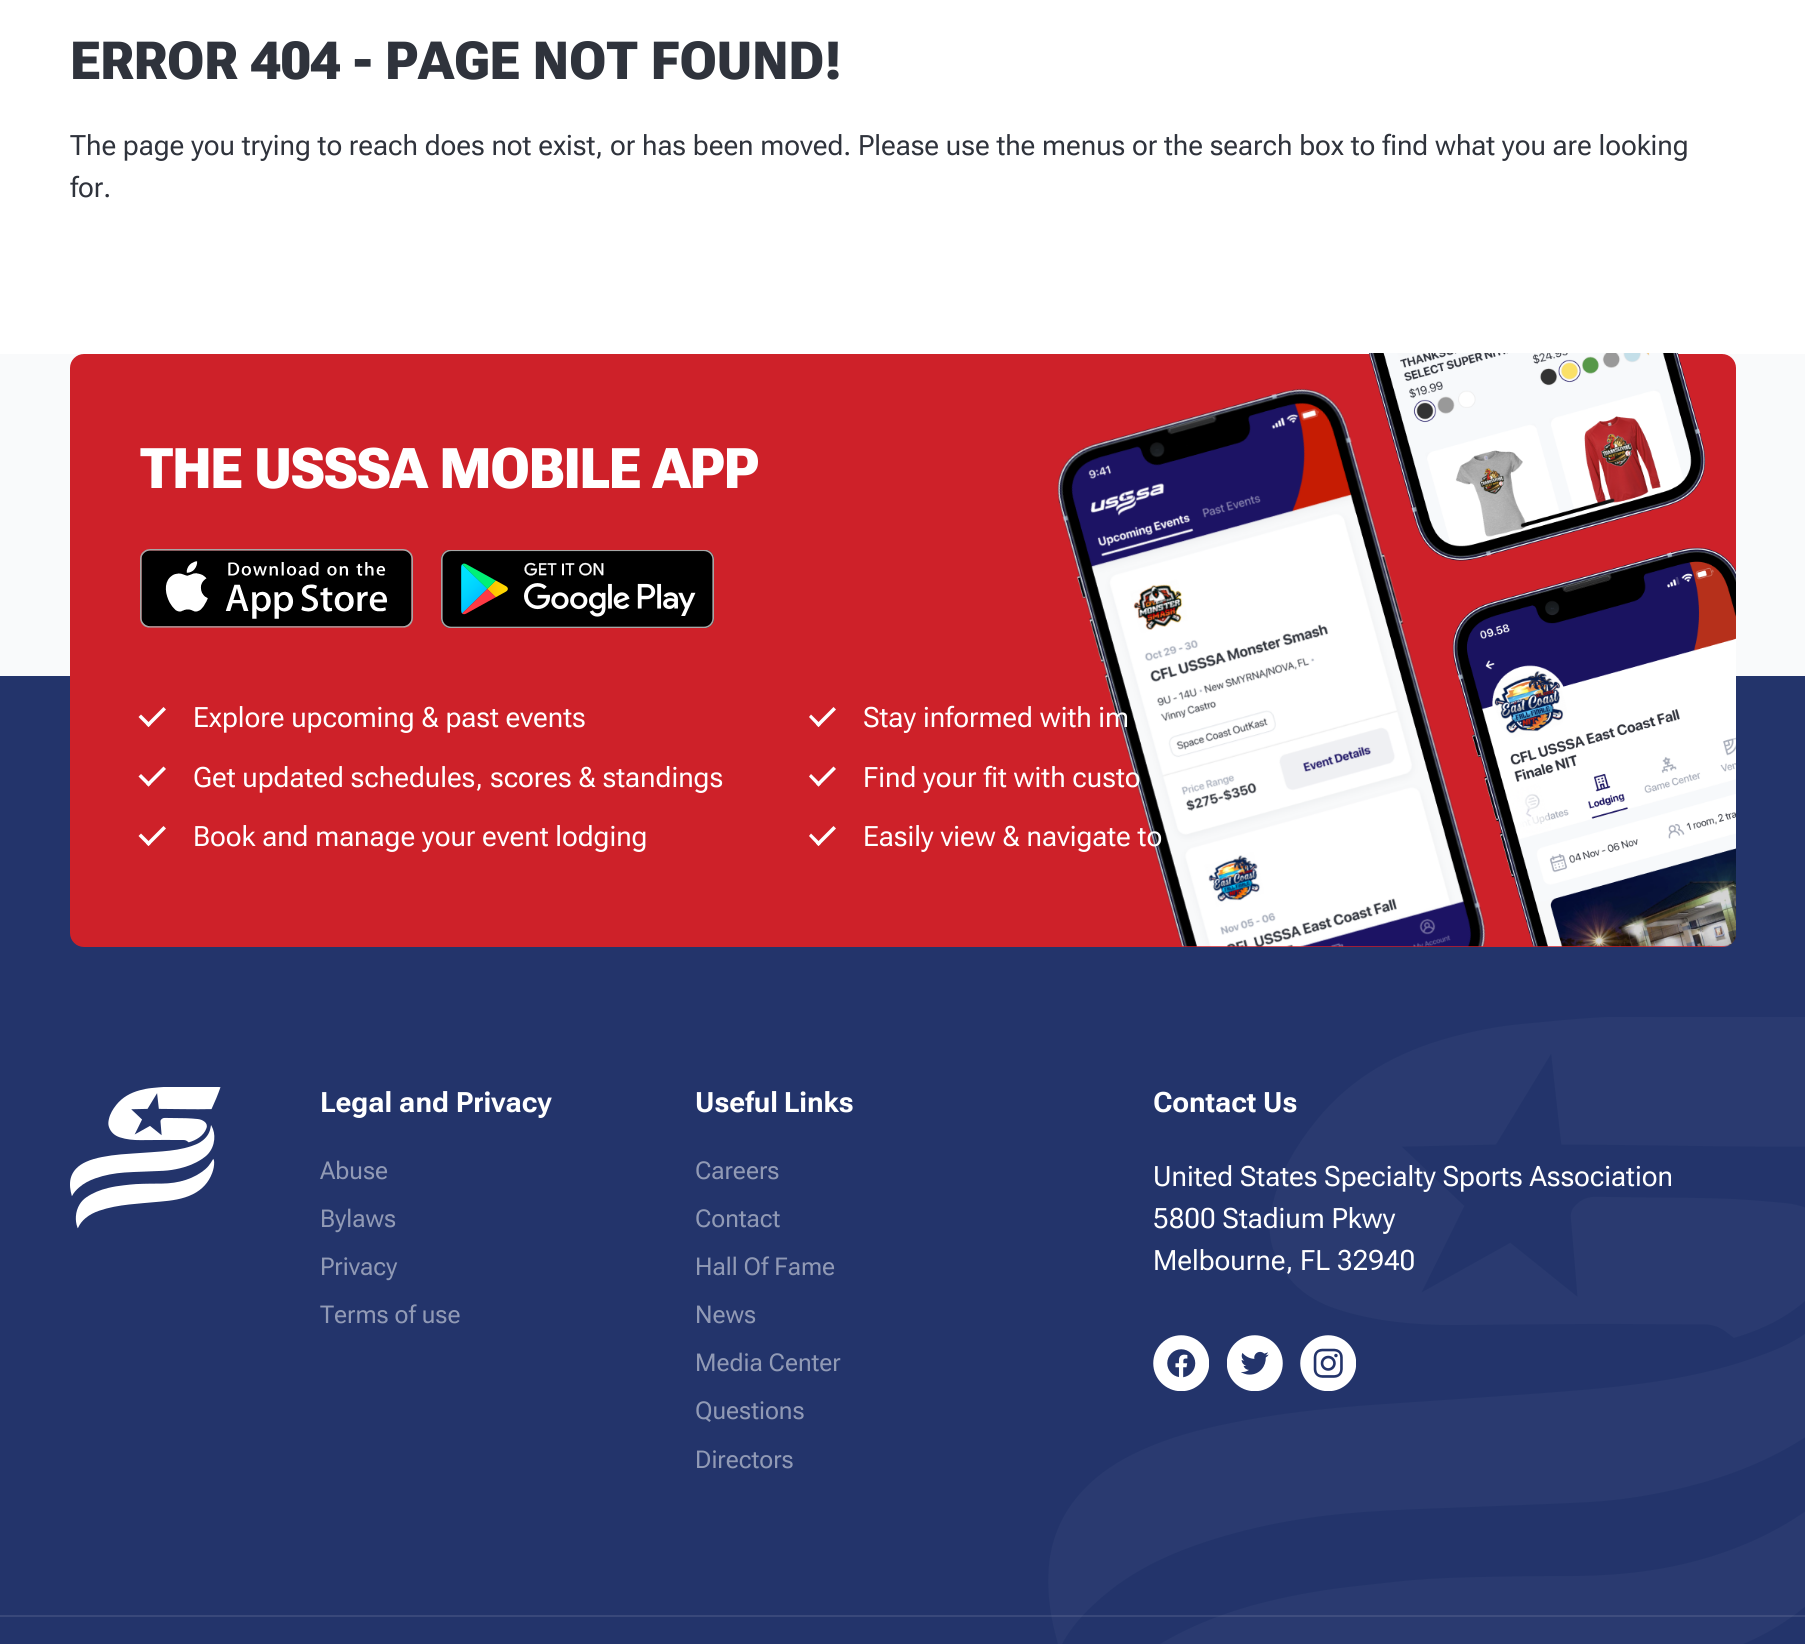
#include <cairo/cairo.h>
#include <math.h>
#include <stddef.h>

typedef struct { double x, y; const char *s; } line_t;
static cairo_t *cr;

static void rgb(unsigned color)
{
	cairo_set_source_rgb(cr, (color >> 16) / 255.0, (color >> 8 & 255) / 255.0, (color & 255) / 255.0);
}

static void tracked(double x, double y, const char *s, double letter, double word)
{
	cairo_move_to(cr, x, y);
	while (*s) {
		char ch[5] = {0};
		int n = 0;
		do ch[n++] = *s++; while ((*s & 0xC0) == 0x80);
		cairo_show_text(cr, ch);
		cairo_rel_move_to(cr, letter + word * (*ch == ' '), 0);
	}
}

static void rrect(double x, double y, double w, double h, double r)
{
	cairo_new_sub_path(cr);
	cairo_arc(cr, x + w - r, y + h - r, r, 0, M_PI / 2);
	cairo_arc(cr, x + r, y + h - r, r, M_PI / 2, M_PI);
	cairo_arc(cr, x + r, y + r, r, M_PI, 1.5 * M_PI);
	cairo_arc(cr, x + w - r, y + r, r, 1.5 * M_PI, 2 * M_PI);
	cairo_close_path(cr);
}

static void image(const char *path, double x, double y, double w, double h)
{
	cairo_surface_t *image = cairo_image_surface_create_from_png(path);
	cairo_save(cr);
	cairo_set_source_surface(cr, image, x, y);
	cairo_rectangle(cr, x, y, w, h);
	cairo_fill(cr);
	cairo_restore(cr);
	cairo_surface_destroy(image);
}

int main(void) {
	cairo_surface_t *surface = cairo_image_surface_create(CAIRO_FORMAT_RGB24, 1805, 1644);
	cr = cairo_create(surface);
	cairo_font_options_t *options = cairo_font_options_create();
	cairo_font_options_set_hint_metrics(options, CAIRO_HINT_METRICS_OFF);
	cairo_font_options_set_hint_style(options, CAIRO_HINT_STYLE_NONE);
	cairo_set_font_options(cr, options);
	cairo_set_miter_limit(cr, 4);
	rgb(0xffffff);
	cairo_paint(cr);
	rgb(0xf9fafb);
	cairo_rectangle(cr, 0, 354, 1805, 322);
	cairo_fill(cr);
	rgb(0x23346b);
	cairo_rectangle(cr, 0, 676, 1805, 968);
	cairo_fill(cr);
	rgb(0xce2129);
	rrect(70, 354, 1666, 593, 14);
	cairo_fill(cr);
	image("img/1.png", 140, 549, 273, 79);
	image("img/2.png", 441, 550, 273, 78);
	rgb(0xffffff);
	cairo_new_path(cr);
	cairo_move_to(cr, 163.5, 707);
	cairo_line_to(cr, 166, 709.5);
	cairo_line_to(cr, 148.5, 727);
	cairo_line_to(cr, 146, 724.5);
	cairo_close_path(cr);
	cairo_fill(cr);
	cairo_new_path(cr);
	cairo_move_to(cr, 141, 714.5);
	cairo_line_to(cr, 151, 724.5);
	cairo_line_to(cr, 148.5, 727);
	cairo_line_to(cr, 138.5, 717);
	cairo_close_path(cr);
	cairo_fill(cr);
	cairo_new_path(cr);
	cairo_move_to(cr, 163.5, 766.5);
	cairo_line_to(cr, 166, 769);
	cairo_line_to(cr, 148.5, 786.5);
	cairo_line_to(cr, 146, 784);
	cairo_close_path(cr);
	cairo_fill(cr);
	cairo_new_path(cr);
	cairo_move_to(cr, 141, 774);
	cairo_line_to(cr, 151, 784);
	cairo_line_to(cr, 148.5, 786.5);
	cairo_line_to(cr, 138.5, 776.5);
	cairo_close_path(cr);
	cairo_fill(cr);
	cairo_new_path(cr);
	cairo_move_to(cr, 163.5, 826);
	cairo_line_to(cr, 166, 828.5);
	cairo_line_to(cr, 148.5, 846);
	cairo_line_to(cr, 146, 843.5);
	cairo_close_path(cr);
	cairo_fill(cr);
	cairo_new_path(cr);
	cairo_move_to(cr, 141, 833.5);
	cairo_line_to(cr, 151, 843.5);
	cairo_line_to(cr, 148.5, 846);
	cairo_line_to(cr, 138.5, 836);
	cairo_close_path(cr);
	cairo_fill(cr);
	cairo_new_path(cr);
	cairo_move_to(cr, 833.5, 707);
	cairo_line_to(cr, 836, 709.5);
	cairo_line_to(cr, 818.5, 727);
	cairo_line_to(cr, 816, 724.5);
	cairo_close_path(cr);
	cairo_fill(cr);
	cairo_new_path(cr);
	cairo_move_to(cr, 811, 714.5);
	cairo_line_to(cr, 821, 724.5);
	cairo_line_to(cr, 818.5, 727);
	cairo_line_to(cr, 809, 717);
	cairo_close_path(cr);
	cairo_fill(cr);
	cairo_new_path(cr);
	cairo_move_to(cr, 833.5, 766.5);
	cairo_line_to(cr, 836, 769);
	cairo_line_to(cr, 818.5, 786.5);
	cairo_line_to(cr, 816, 784);
	cairo_close_path(cr);
	cairo_fill(cr);
	cairo_new_path(cr);
	cairo_move_to(cr, 811, 774);
	cairo_line_to(cr, 821, 784);
	cairo_line_to(cr, 818.5, 786.5);
	cairo_line_to(cr, 809, 776.5);
	cairo_close_path(cr);
	cairo_fill(cr);
	cairo_new_path(cr);
	cairo_move_to(cr, 833.5, 826);
	cairo_line_to(cr, 836, 828.5);
	cairo_line_to(cr, 818.5, 846);
	cairo_line_to(cr, 816, 843.5);
	cairo_close_path(cr);
	cairo_fill(cr);
	cairo_new_path(cr);
	cairo_move_to(cr, 811, 833.5);
	cairo_line_to(cr, 821, 843.5);
	cairo_line_to(cr, 818.5, 846);
	cairo_line_to(cr, 809, 836);
	cairo_close_path(cr);
	cairo_fill(cr);
	image("img/3.png", 1057, 353, 679, 594);
	image("img/4.png", 1048, 1017, 757, 627);
	image("img/5.png", 70, 1087, 151, 142);
	image("img/6.png", 1153, 1335, 56, 56);
	image("img/7.png", 1227, 1335, 56, 56);
	image("img/8.png", 1300, 1335, 56, 56);
	cairo_set_source_rgba(cr, 1, 1, 1, 0.1);
	cairo_rectangle(cr, 0, 1615, 1805, 2);
	cairo_fill(cr);
	cairo_select_font_face(cr, "Roboto Flex ExtraBold", CAIRO_FONT_SLANT_NORMAL, CAIRO_FONT_WEIGHT_NORMAL);
	cairo_set_font_size(cr, 52.5);
	rgb(0x2f333c);
	cairo_move_to(cr, 70, 79);
	cairo_show_text(cr, "ERROR 404 - PAGE NOT FOUND!");
	cairo_select_font_face(cr, "Roboto Flex", CAIRO_FONT_SLANT_NORMAL, CAIRO_FONT_WEIGHT_NORMAL);
	cairo_set_font_size(cr, 28);
	cairo_move_to(cr, 70, 155);
	cairo_show_text(cr, "The page you trying to reach does not exist, or has been moved. Please use the menus or the search box to find what you are looking");
	cairo_move_to(cr, 70, 197);
	cairo_show_text(cr, "for.");
	cairo_select_font_face(cr, "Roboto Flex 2 ExtraBold", CAIRO_FONT_SLANT_NORMAL, CAIRO_FONT_WEIGHT_NORMAL);
	cairo_set_font_size(cr, 56);
	rgb(0xffffff);
	tracked(140, 488, "THE USSSA MOBILE APP", -1.1, 0);
	cairo_select_font_face(cr, "Roboto Flex", CAIRO_FONT_SLANT_NORMAL, CAIRO_FONT_WEIGHT_NORMAL);
	cairo_set_font_size(cr, 28);
	{
		static const line_t items[] = {
			{193, 727, "Explore upcoming & past events"},
			{193, 787, "Get updated schedules, scores & standings"},
			{193, 846, "Book and manage your event lodging"},
			{863, 727, "Stay informed with im"},
			{863, 787, "Find your fit with custo"},
			{863, 846, "Easily view & navigate to"},
		};
		for (size_t i = 0; i < sizeof items / sizeof *items; i++) {
			cairo_move_to(cr, items[i].x, items[i].y);
			cairo_show_text(cr, items[i].s);
		}
	}
	cairo_select_font_face(cr, "Roboto Flex", CAIRO_FONT_SLANT_NORMAL, CAIRO_FONT_WEIGHT_BOLD);
	cairo_move_to(cr, 320, 1112);
	cairo_show_text(cr, "Legal and Privacy");
	cairo_select_font_face(cr, "Roboto Flex 2", CAIRO_FONT_SLANT_NORMAL, CAIRO_FONT_WEIGHT_NORMAL);
	cairo_set_font_size(cr, 24.5);
	rgb(0x919ab5);
	{
		static const line_t items[] = {
			{320, 1179, "Abuse"},
			{320, 1227, "Bylaws"},
			{320, 1275, "Privacy"},
			{320, 1323, "Terms of use"},
		};
		for (size_t i = 0; i < sizeof items / sizeof *items; i++) {
			cairo_move_to(cr, items[i].x, items[i].y);
			cairo_show_text(cr, items[i].s);
		}
	}
	cairo_select_font_face(cr, "Roboto Flex", CAIRO_FONT_SLANT_NORMAL, CAIRO_FONT_WEIGHT_BOLD);
	cairo_set_font_size(cr, 28);
	rgb(0xffffff);
	tracked(695, 1112, "Useful Links", 0, -1);
	cairo_select_font_face(cr, "Roboto Flex 2", CAIRO_FONT_SLANT_NORMAL, CAIRO_FONT_WEIGHT_NORMAL);
	cairo_set_font_size(cr, 24.5);
	rgb(0x919ab5);
	{
		static const line_t items[] = {
			{695, 1179, "Careers"},
			{695, 1227, "Contact"},
			{695, 1275, "Hall Of Fame"},
			{695, 1323, "News"},
			{695, 1371, "Media Center"},
			{695, 1419, "Questions"},
			{695, 1468, "Directors"},
		};
		for (size_t i = 0; i < sizeof items / sizeof *items; i++) {
			cairo_move_to(cr, items[i].x, items[i].y);
			cairo_show_text(cr, items[i].s);
		}
	}
	cairo_select_font_face(cr, "Roboto Flex", CAIRO_FONT_SLANT_NORMAL, CAIRO_FONT_WEIGHT_BOLD);
	cairo_set_font_size(cr, 28);
	rgb(0xffffff);
	cairo_move_to(cr, 1153, 1112);
	cairo_show_text(cr, "Contact Us");
	cairo_select_font_face(cr, "Roboto Flex", CAIRO_FONT_SLANT_NORMAL, CAIRO_FONT_WEIGHT_NORMAL);
	{
		static const line_t items[] = {
			{1153, 1186, "United States Specialty Sports Association"},
			{1153, 1228, "5800 Stadium Pkwy"},
			{1153, 1270, "Melbourne, FL 32940"},
		};
		for (size_t i = 0; i < sizeof items / sizeof *items; i++) {
			cairo_move_to(cr, items[i].x, items[i].y);
			cairo_show_text(cr, items[i].s);
		}
	}
	cairo_surface_write_to_png(surface, "page.png");
	cairo_font_options_destroy(options);
	cairo_destroy(cr);
	cairo_surface_destroy(surface);
	return 0;
}
